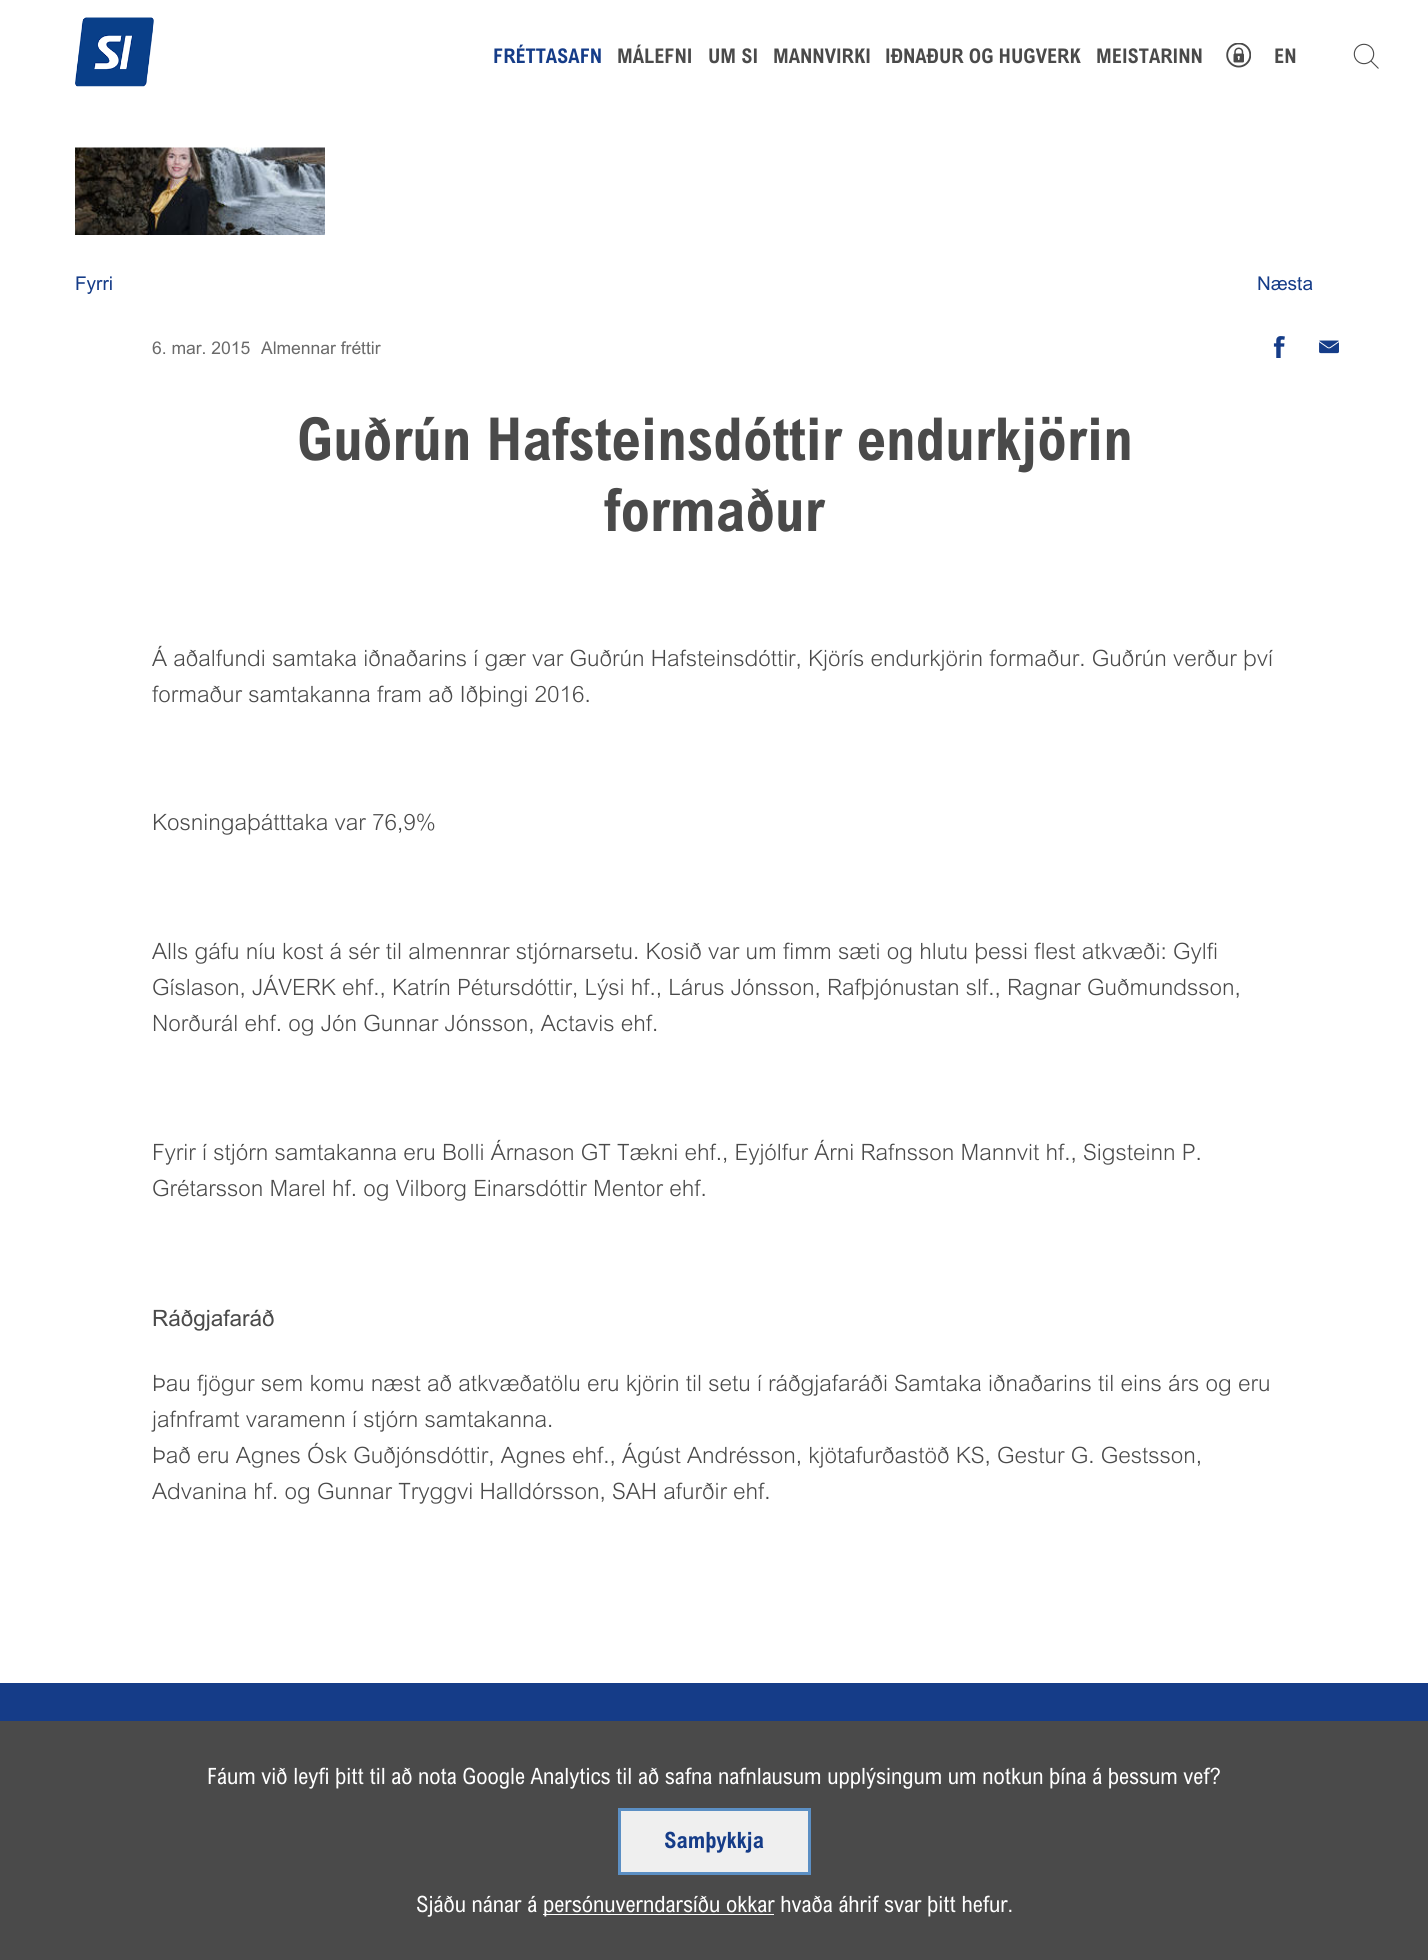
#include <cairo/cairo.h>
#include <math.h>
#include <stddef.h>

typedef struct { double x, y; const char *s; } line_t;
static cairo_t *cr;

static void rgb(unsigned color)
{
	cairo_set_source_rgb(cr, (color >> 16) / 255.0, (color >> 8 & 255) / 255.0, (color & 255) / 255.0);
}

static void image(const char *path, double x, double y, double w, double h)
{
	cairo_surface_t *image = cairo_image_surface_create_from_png(path);
	cairo_save(cr);
	cairo_set_source_surface(cr, image, x, y);
	cairo_rectangle(cr, x, y, w, h);
	cairo_fill(cr);
	cairo_restore(cr);
	cairo_surface_destroy(image);
}

int main(void) {
	cairo_surface_t *surface = cairo_image_surface_create(CAIRO_FORMAT_RGB24, 1428, 1960);
	cr = cairo_create(surface);
	cairo_font_options_t *options = cairo_font_options_create();
	cairo_font_options_set_hint_metrics(options, CAIRO_HINT_METRICS_OFF);
	cairo_font_options_set_hint_style(options, CAIRO_HINT_STYLE_NONE);
	cairo_set_font_options(cr, options);
	cairo_set_miter_limit(cr, 4);
	rgb(0xffffff);
	cairo_paint(cr);
	image("img/1.png", 75, 17, 79, 70);
	image("img/2.png", 1226, 43, 25, 25);
	image("img/3.png", 1353, 43, 26, 26);
	image("img/4.png", 75, 147, 250, 88);
	image("img/5.png", 1273, 336, 12, 22);
	image("img/6.png", 1319, 340, 20, 14);
	rgb(0x153c88);
	cairo_rectangle(cr, 0, 1683, 1428, 38);
	cairo_fill(cr);
	rgb(0x4a4a4a);
	cairo_rectangle(cr, 0, 1721, 1428, 239);
	cairo_fill(cr);
	rgb(0xefefef);
	cairo_rectangle(cr, 619.5, 1809.5, 190, 64);
	cairo_fill_preserve(cr);
	rgb(0x5b8fc4);
	cairo_set_line_width(cr, 3);
	cairo_stroke(cr);
	rgb(0xffffff);
	cairo_rectangle(cr, 543, 1914, 231, 1);
	cairo_fill(cr);
	cairo_select_font_face(cr, "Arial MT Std", CAIRO_FONT_SLANT_NORMAL, CAIRO_FONT_WEIGHT_BOLD);
	cairo_set_font_size(cr, 20.25);
	rgb(0x153c88);
	cairo_move_to(cr, 493, 63);
	cairo_show_text(cr, "FRÉTTASAFN");
	rgb(0x4a4a4a);
	{
		static const line_t items[] = {
			{617, 63, "MÁLEFNI"},
			{708, 63, "UM SI"},
			{773, 63, "MANNVIRKI"},
			{885, 63, "IÐNAÐUR OG HUGVERK"},
			{1096, 63, "MEISTARINN"},
			{1274, 63, "EN"},
		};
		for (size_t i = 0; i < sizeof items / sizeof *items; i++) {
			cairo_move_to(cr, items[i].x, items[i].y);
			cairo_show_text(cr, items[i].s);
		}
	}
	cairo_select_font_face(cr, "Arial MT Std", CAIRO_FONT_SLANT_NORMAL, CAIRO_FONT_WEIGHT_NORMAL);
	cairo_set_font_size(cr, 19);
	rgb(0x153c88);
	cairo_move_to(cr, 75, 290);
	cairo_show_text(cr, "Fyrri");
	cairo_move_to(cr, 1257, 290);
	cairo_show_text(cr, "Næsta");
	cairo_set_font_size(cr, 17.5);
	rgb(0x6a6a6a);
	cairo_move_to(cr, 152, 354);
	cairo_show_text(cr, "6. mar. 2015");
	cairo_move_to(cr, 261, 354);
	cairo_show_text(cr, "Almennar fréttir");
	cairo_select_font_face(cr, "Arial MT Std", CAIRO_FONT_SLANT_NORMAL, CAIRO_FONT_WEIGHT_BOLD);
	cairo_set_font_size(cr, 59.25);
	rgb(0x4a4a4a);
	cairo_move_to(cr, 297, 460);
	cairo_show_text(cr, "Guðrún Hafsteinsdóttir endurkjörin");
	cairo_move_to(cr, 604, 531);
	cairo_show_text(cr, "formaður");
	cairo_select_font_face(cr, "Arial MT Std Light", CAIRO_FONT_SLANT_NORMAL, CAIRO_FONT_WEIGHT_NORMAL);
	cairo_set_font_size(cr, 22.5);
	{
		static const line_t items[] = {
			{152, 666, "Á aðalfundi samtaka iðnaðarins í gær var Guðrún Hafsteinsdóttir, Kjörís endurkjörin formaður. Guðrún verður því"},
			{152, 702, "formaður samtakanna fram að Iðþingi 2016."},
			{152, 830, "Kosningaþátttaka var 76,9%"},
			{152, 959, "Alls gáfu níu kost á sér til almennrar stjórnarsetu. Kosið var um fimm sæti og hlutu þessi flest atkvæði: Gylfi"},
			{152, 995, "Gíslason, JÁVERK ehf., Katrín Pétursdóttir, Lýsi hf., Lárus Jónsson, Rafþjónustan slf., Ragnar Guðmundsson,"},
			{152, 1031, "Norðurál ehf. og Jón Gunnar Jónsson, Actavis ehf."},
			{152, 1160, "Fyrir í stjórn samtakanna eru Bolli Árnason GT Tækni ehf., Eyjólfur Árni Rafnsson Mannvit hf., Sigsteinn P."},
			{152, 1196, "Grétarsson Marel hf. og Vilborg Einarsdóttir Mentor ehf."},
		};
		for (size_t i = 0; i < sizeof items / sizeof *items; i++) {
			cairo_move_to(cr, items[i].x, items[i].y);
			cairo_show_text(cr, items[i].s);
		}
	}
	cairo_select_font_face(cr, "Arial MT Std", CAIRO_FONT_SLANT_NORMAL, CAIRO_FONT_WEIGHT_NORMAL);
	cairo_move_to(cr, 152, 1326);
	cairo_show_text(cr, "Ráðgjafaráð");
	cairo_select_font_face(cr, "Arial MT Std Light", CAIRO_FONT_SLANT_NORMAL, CAIRO_FONT_WEIGHT_NORMAL);
	{
		static const line_t items[] = {
			{152, 1391, "Þau fjögur sem komu næst að atkvæðatölu eru kjörin til setu í ráðgjafaráði Samtaka iðnaðarins til eins árs og eru"},
			{152, 1427, "jafnframt varamenn í stjórn samtakanna."},
			{152, 1463, "Það eru Agnes Ósk Guðjónsdóttir, Agnes ehf., Ágúst Andrésson, kjötafurðastöð KS, Gestur G. Gestsson,"},
			{152, 1499, "Advanina hf. og Gunnar Tryggvi Halldórsson, SAH afurðir ehf."},
		};
		for (size_t i = 0; i < sizeof items / sizeof *items; i++) {
			cairo_move_to(cr, items[i].x, items[i].y);
			cairo_show_text(cr, items[i].s);
		}
	}
	cairo_select_font_face(cr, "Arial MT Std Medium", CAIRO_FONT_SLANT_NORMAL, CAIRO_FONT_WEIGHT_NORMAL);
	rgb(0xffffff);
	cairo_move_to(cr, 207, 1784);
	cairo_show_text(cr, "Fáum við leyfi þitt til að nota Google Analytics til að safna nafnlausum upplýsingum um notkun þína á þessum vef?");
	cairo_select_font_face(cr, "Arial MT Std", CAIRO_FONT_SLANT_NORMAL, CAIRO_FONT_WEIGHT_BOLD);
	rgb(0x153c88);
	cairo_move_to(cr, 664, 1848);
	cairo_show_text(cr, "Samþykkja");
	cairo_select_font_face(cr, "Arial MT Std Medium", CAIRO_FONT_SLANT_NORMAL, CAIRO_FONT_WEIGHT_NORMAL);
	rgb(0xffffff);
	cairo_move_to(cr, 416, 1912);
	cairo_show_text(cr, "Sjáðu nánar á");
	cairo_move_to(cr, 543, 1912);
	cairo_show_text(cr, "persónuverndarsíðu okkar hvaða áhrif svar þitt hefur.");
	cairo_surface_write_to_png(surface, "page.png");
	cairo_font_options_destroy(options);
	cairo_destroy(cr);
	cairo_surface_destroy(surface);
	return 0;
}
